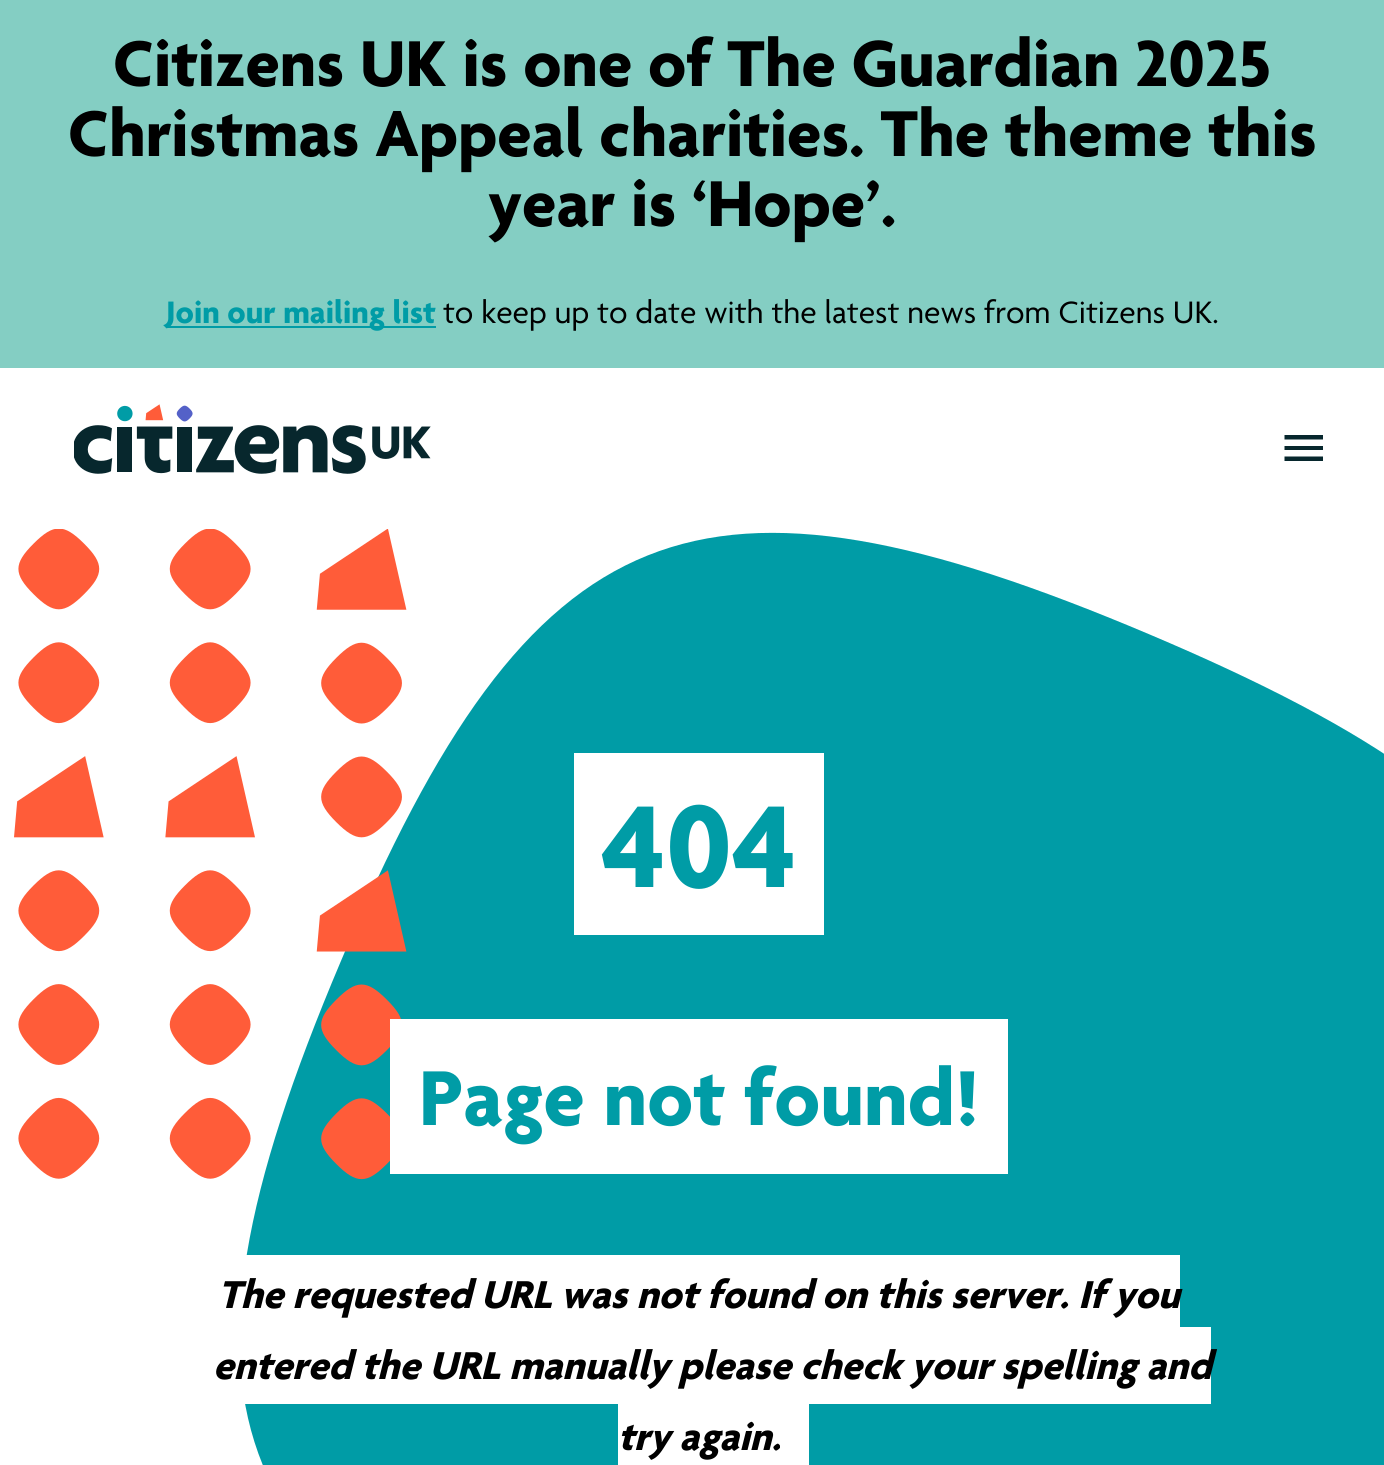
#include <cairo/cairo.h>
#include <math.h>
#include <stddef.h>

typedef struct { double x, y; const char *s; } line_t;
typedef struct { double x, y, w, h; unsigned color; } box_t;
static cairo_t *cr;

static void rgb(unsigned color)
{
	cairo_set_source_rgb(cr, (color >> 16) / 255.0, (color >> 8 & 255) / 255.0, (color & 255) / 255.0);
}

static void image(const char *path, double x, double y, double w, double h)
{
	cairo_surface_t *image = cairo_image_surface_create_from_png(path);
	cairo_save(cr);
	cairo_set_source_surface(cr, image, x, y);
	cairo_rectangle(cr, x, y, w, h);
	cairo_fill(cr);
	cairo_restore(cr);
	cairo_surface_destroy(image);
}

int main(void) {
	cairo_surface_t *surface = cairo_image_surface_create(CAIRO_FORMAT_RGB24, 1384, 1465);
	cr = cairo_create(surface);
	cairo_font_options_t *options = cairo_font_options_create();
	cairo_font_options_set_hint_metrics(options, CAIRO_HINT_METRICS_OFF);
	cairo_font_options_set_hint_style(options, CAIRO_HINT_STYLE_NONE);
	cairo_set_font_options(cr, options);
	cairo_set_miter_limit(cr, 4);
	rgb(0xffffff);
	cairo_paint(cr);
	rgb(0x84cec3);
	cairo_rectangle(cr, 0, 0, 1384, 368);
	cairo_fill(cr);
	rgb(0x009ca6);
	cairo_rectangle(cr, 166, 326, 270, 2);
	cairo_fill(cr);
	image("img/1.png", 74, 404, 357, 70);
	rgb(0x07272d);
	cairo_new_path(cr);
	cairo_move_to(cr, 1284.5, 435);
	cairo_line_to(cr, 1323, 435);
	cairo_line_to(cr, 1323, 439.5);
	cairo_line_to(cr, 1284.5, 439.5);
	cairo_close_path(cr);
	cairo_move_to(cr, 1284.5, 450);
	cairo_line_to(cr, 1284.5, 446);
	cairo_line_to(cr, 1323, 446);
	cairo_line_to(cr, 1323, 450);
	cairo_close_path(cr);
	cairo_move_to(cr, 1284.5, 461);
	cairo_line_to(cr, 1284.5, 456.5);
	cairo_line_to(cr, 1323, 456.5);
	cairo_line_to(cr, 1323, 461);
	cairo_close_path(cr);
	cairo_fill(cr);
	image("img/2.png", 14, 529, 1370, 936);
	{
		static const box_t items[] = {
			{574, 753, 250, 182, 0xffffff},
			{390, 1019, 618, 155, 0xffffff},
			{239, 1255, 941, 77, 0xffffff},
			{239, 1327, 972, 77, 0xffffff},
			{618, 1404, 191, 61, 0xffffff},
		};
		for (size_t i = 0; i < sizeof items / sizeof *items; i++) {
			rgb(items[i].color);
			cairo_rectangle(cr, items[i].x, items[i].y, items[i].w, items[i].h);
			cairo_fill(cr);
		}
	}
	cairo_select_font_face(cr, "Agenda", CAIRO_FONT_SLANT_NORMAL, CAIRO_FONT_WEIGHT_BOLD);
	cairo_set_font_size(cr, 70);
	rgb(0x000000);
	{
		static const line_t items[] = {
			{113, 86, "Citizens UK is one of The Guardian 2025"},
			{68, 156, "Christmas Appeal charities. The theme this"},
			{488, 226, "year is ‘Hope’."},
		};
		for (size_t i = 0; i < sizeof items / sizeof *items; i++) {
			cairo_move_to(cr, items[i].x, items[i].y);
			cairo_show_text(cr, items[i].s);
		}
	}
	cairo_set_font_size(cr, 33.6);
	rgb(0x009ca6);
	cairo_move_to(cr, 166, 323);
	cairo_show_text(cr, "Join our mailing list");
	cairo_select_font_face(cr, "Agenda", CAIRO_FONT_SLANT_NORMAL, CAIRO_FONT_WEIGHT_NORMAL);
	rgb(0x000000);
	cairo_move_to(cr, 443, 323);
	cairo_show_text(cr, "to keep up to date with the latest news from Citizens UK.");
	cairo_select_font_face(cr, "Agenda", CAIRO_FONT_SLANT_NORMAL, CAIRO_FONT_WEIGHT_BOLD);
	cairo_set_font_size(cr, 126);
	rgb(0x009ca6);
	cairo_move_to(cr, 601, 887);
	cairo_show_text(cr, "404");
	cairo_set_font_size(cr, 84);
	cairo_move_to(cr, 419, 1125);
	cairo_show_text(cr, "Page not found!");
	cairo_select_font_face(cr, "Agenda", CAIRO_FONT_SLANT_ITALIC, CAIRO_FONT_WEIGHT_BOLD);
	cairo_set_font_size(cr, 42);
	rgb(0x000000);
	{
		static const line_t items[] = {
			{218, 1308, "The requested URL was not found on this server. If you"},
			{213, 1379, "entered the URL manually please check your spelling and"},
			{618, 1450, "try again."},
		};
		for (size_t i = 0; i < sizeof items / sizeof *items; i++) {
			cairo_move_to(cr, items[i].x, items[i].y);
			cairo_show_text(cr, items[i].s);
		}
	}
	cairo_surface_write_to_png(surface, "page.png");
	cairo_font_options_destroy(options);
	cairo_destroy(cr);
	cairo_surface_destroy(surface);
	return 0;
}
